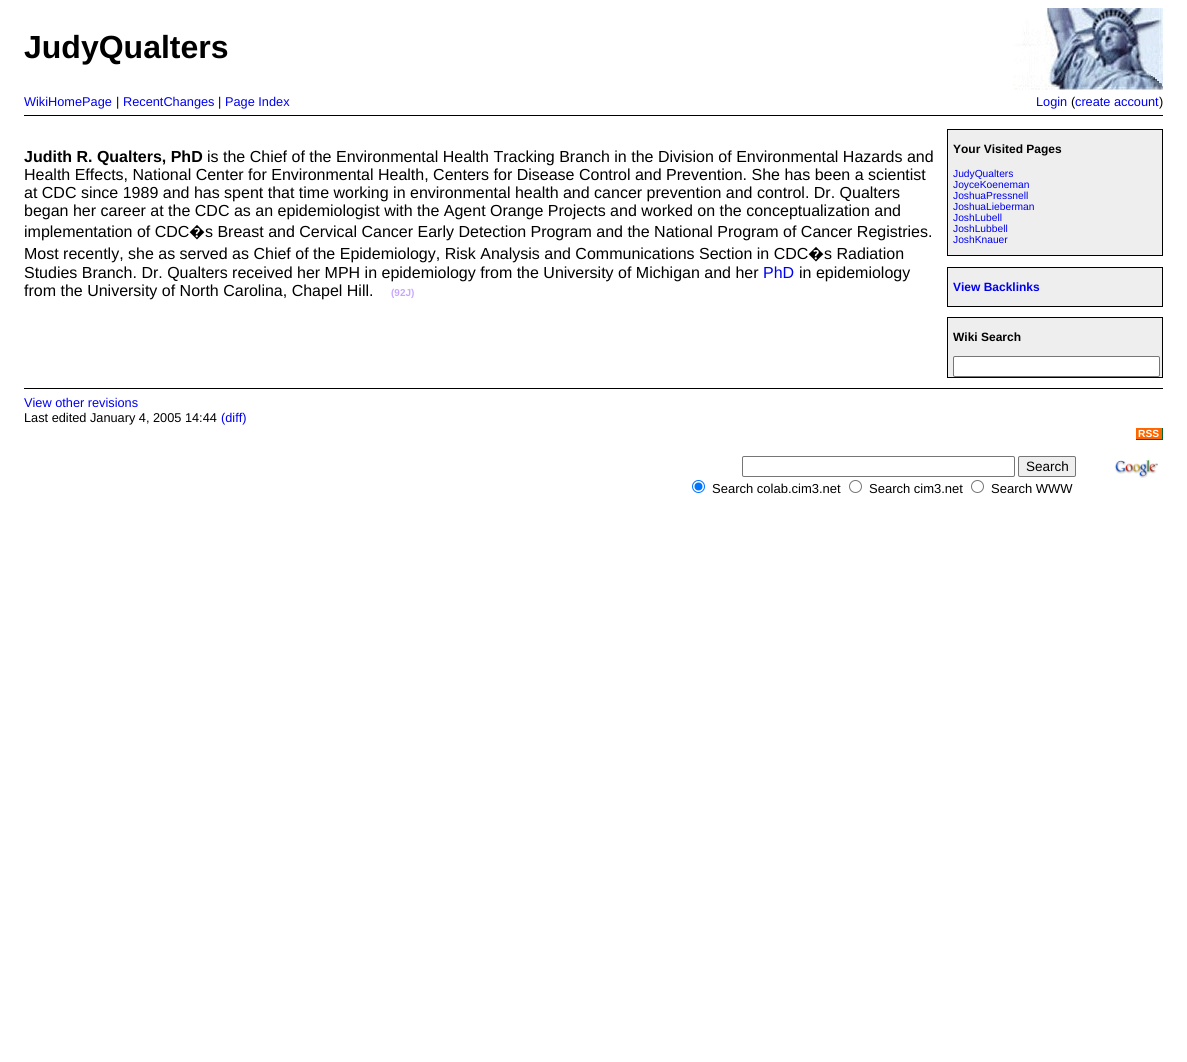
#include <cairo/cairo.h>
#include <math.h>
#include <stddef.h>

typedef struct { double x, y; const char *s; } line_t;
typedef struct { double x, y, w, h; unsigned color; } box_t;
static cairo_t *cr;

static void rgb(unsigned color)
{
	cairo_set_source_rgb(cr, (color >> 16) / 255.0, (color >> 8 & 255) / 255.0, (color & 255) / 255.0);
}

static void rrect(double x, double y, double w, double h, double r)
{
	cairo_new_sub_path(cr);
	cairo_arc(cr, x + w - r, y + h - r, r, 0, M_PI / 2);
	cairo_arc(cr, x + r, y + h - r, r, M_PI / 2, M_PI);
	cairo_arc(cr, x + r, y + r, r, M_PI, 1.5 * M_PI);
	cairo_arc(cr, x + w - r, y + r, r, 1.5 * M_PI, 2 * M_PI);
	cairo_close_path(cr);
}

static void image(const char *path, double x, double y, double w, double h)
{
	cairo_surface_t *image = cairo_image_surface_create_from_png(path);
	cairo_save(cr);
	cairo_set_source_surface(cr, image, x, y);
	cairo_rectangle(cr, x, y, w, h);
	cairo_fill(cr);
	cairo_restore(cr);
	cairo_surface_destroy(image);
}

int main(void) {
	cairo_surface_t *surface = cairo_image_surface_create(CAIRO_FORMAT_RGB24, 1187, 1062);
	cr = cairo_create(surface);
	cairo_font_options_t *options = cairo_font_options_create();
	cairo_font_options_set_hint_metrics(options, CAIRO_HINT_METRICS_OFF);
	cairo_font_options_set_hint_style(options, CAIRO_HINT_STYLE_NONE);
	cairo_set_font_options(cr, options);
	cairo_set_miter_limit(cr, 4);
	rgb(0xffffff);
	cairo_paint(cr);
	image("img/1.png", 1013, 8, 150, 82);
	rgb(0x000000);
	cairo_rectangle(cr, 24, 115, 1139, 1);
	cairo_fill(cr);
	rgb(0xeeeeee);
	cairo_rectangle(cr, 947.5, 129.5, 215, 126);
	cairo_fill_preserve(cr);
	rgb(0x000000);
	cairo_set_line_width(cr, 1);
	cairo_stroke(cr);
	rgb(0xeeeeee);
	cairo_rectangle(cr, 947.5, 267.5, 215, 39);
	cairo_fill_preserve(cr);
	rgb(0x000000);
	cairo_stroke(cr);
	rgb(0xeeeeee);
	cairo_rectangle(cr, 947.5, 317.5, 215, 60);
	cairo_fill_preserve(cr);
	rgb(0x000000);
	cairo_stroke(cr);
	rgb(0xffffff);
	rrect(953.5, 356.5, 206, 20, 1.5);
	cairo_fill_preserve(cr);
	rgb(0x767676);
	cairo_stroke(cr);
	{
		static const box_t items[] = {
			{24, 388, 1139, 1, 0x000000},
			{1136, 428, 26, 11, 0xff6600},
			{1162, 428, 1, 12, 0x006633},
			{1136, 439, 27, 1, 0x006633},
		};
		for (size_t i = 0; i < sizeof items / sizeof *items; i++) {
			rgb(items[i].color);
			cairo_rectangle(cr, items[i].x, items[i].y, items[i].w, items[i].h);
			cairo_fill(cr);
		}
	}
	rrect(742.5, 456.5, 272, 20, 1.5);
	rgb(0x767676);
	cairo_stroke(cr);
	rgb(0xefefef);
	rrect(1018.5, 456.5, 57, 20, 1.5);
	cairo_fill_preserve(cr);
	rgb(0x767676);
	cairo_stroke(cr);
	cairo_arc(cr, 698.5, 486.5, 6, 0, 2 * M_PI);
	rgb(0x0075ff);
	cairo_stroke(cr);
	cairo_arc(cr, 698.5, 486.5, 4, 0, 2 * M_PI);
	cairo_fill(cr);
	cairo_arc(cr, 855.5, 486.5, 6, 0, 2 * M_PI);
	rgb(0x767676);
	cairo_stroke(cr);
	cairo_arc(cr, 977.5, 486.5, 6, 0, 2 * M_PI);
	cairo_stroke(cr);
	image("img/2.png", 1114, 460, 44, 18);
	cairo_select_font_face(cr, "Liberation Sans", CAIRO_FONT_SLANT_NORMAL, CAIRO_FONT_WEIGHT_BOLD);
	cairo_set_font_size(cr, 32);
	rgb(0x000000);
	cairo_move_to(cr, 24, 58);
	cairo_show_text(cr, "JudyQualters");
	cairo_select_font_face(cr, "Liberation Sans", CAIRO_FONT_SLANT_NORMAL, CAIRO_FONT_WEIGHT_NORMAL);
	cairo_set_font_size(cr, 12.75);
	rgb(0x0000ee);
	cairo_move_to(cr, 24, 106);
	cairo_show_text(cr, "WikiHomePage");
	rgb(0x000000);
	cairo_move_to(cr, 116, 106);
	cairo_show_text(cr, "|");
	rgb(0x0000ee);
	cairo_move_to(cr, 123, 106);
	cairo_show_text(cr, "RecentChanges");
	rgb(0x000000);
	cairo_move_to(cr, 218, 106);
	cairo_show_text(cr, "|");
	rgb(0x0000ee);
	cairo_move_to(cr, 225, 106);
	cairo_show_text(cr, "Page Index");
	cairo_move_to(cr, 1036, 106);
	cairo_show_text(cr, "Login");
	rgb(0x000000);
	cairo_move_to(cr, 1071, 106);
	cairo_show_text(cr, "(");
	rgb(0x0000ee);
	cairo_move_to(cr, 1075, 106);
	cairo_show_text(cr, "create account");
	rgb(0x000000);
	cairo_move_to(cr, 1159, 106);
	cairo_show_text(cr, ")");
	cairo_select_font_face(cr, "Liberation Sans", CAIRO_FONT_SLANT_NORMAL, CAIRO_FONT_WEIGHT_BOLD);
	cairo_set_font_size(cr, 16);
	cairo_move_to(cr, 24, 162);
	cairo_show_text(cr, "Judith R. Qualters, PhD");
	cairo_select_font_face(cr, "Liberation Sans", CAIRO_FONT_SLANT_NORMAL, CAIRO_FONT_WEIGHT_NORMAL);
	{
		static const line_t items[] = {
			{207, 162, "is the Chief of the Environmental Health Tracking Branch in the Division of Environmental Hazards and"},
			{24, 180, "Health Effects, National Center for Environmental Health, Centers for Disease Control and Prevention. She has been a scientist"},
			{24, 198, "at CDC since 1989 and has spent that time working in environmental health and cancer prevention and control. Dr. Qualters"},
			{24, 216, "began her career at the CDC as an epidemiologist with the Agent Orange Projects and worked on the conceptualization and"},
			{24, 237, "implementation of CDC"},
		};
		for (size_t i = 0; i < sizeof items / sizeof *items; i++) {
			cairo_move_to(cr, items[i].x, items[i].y);
			cairo_show_text(cr, items[i].s);
		}
	}
	cairo_select_font_face(cr, "Noto Sans", CAIRO_FONT_SLANT_NORMAL, CAIRO_FONT_WEIGHT_NORMAL);
	cairo_move_to(cr, 189, 237);
	cairo_show_text(cr, "�");
	cairo_select_font_face(cr, "Liberation Sans", CAIRO_FONT_SLANT_NORMAL, CAIRO_FONT_WEIGHT_NORMAL);
	cairo_move_to(cr, 205, 237);
	cairo_show_text(cr, "s Breast and Cervical Cancer Early Detection Program and the National Program of Cancer Registries.");
	cairo_move_to(cr, 24, 259);
	cairo_show_text(cr, "Most recently, she as served as Chief of the Epidemiology, Risk Analysis and Communications Section in CDC");
	cairo_select_font_face(cr, "Noto Sans", CAIRO_FONT_SLANT_NORMAL, CAIRO_FONT_WEIGHT_NORMAL);
	cairo_move_to(cr, 808, 259);
	cairo_show_text(cr, "�");
	cairo_select_font_face(cr, "Liberation Sans", CAIRO_FONT_SLANT_NORMAL, CAIRO_FONT_WEIGHT_NORMAL);
	cairo_move_to(cr, 824, 259);
	cairo_show_text(cr, "s Radiation");
	cairo_move_to(cr, 24, 278);
	cairo_show_text(cr, "Studies Branch. Dr. Qualters received her MPH in epidemiology from the University of Michigan and her");
	rgb(0x0000ee);
	cairo_move_to(cr, 763, 278);
	cairo_show_text(cr, "PhD");
	rgb(0x000000);
	cairo_move_to(cr, 799, 278);
	cairo_show_text(cr, "in epidemiology");
	cairo_move_to(cr, 24, 296);
	cairo_show_text(cr, "from the University of North Carolina, Chapel Hill.");
	cairo_select_font_face(cr, "Liberation Sans", CAIRO_FONT_SLANT_NORMAL, CAIRO_FONT_WEIGHT_BOLD);
	cairo_set_font_size(cr, 10);
	rgb(0xc8a8ff);
	cairo_move_to(cr, 391, 296);
	cairo_show_text(cr, "(92J)");
	cairo_set_font_size(cr, 12);
	rgb(0x000000);
	cairo_move_to(cr, 953, 153);
	cairo_show_text(cr, "Your Visited Pages");
	cairo_select_font_face(cr, "Liberation Sans", CAIRO_FONT_SLANT_NORMAL, CAIRO_FONT_WEIGHT_NORMAL);
	cairo_set_font_size(cr, 10.25);
	rgb(0x0000ee);
	{
		static const line_t items[] = {
			{953, 177, "JudyQualters"},
			{953, 188, "JoyceKoeneman"},
			{953, 199, "JoshuaPressnell"},
			{953, 210, "JoshuaLieberman"},
			{953, 221, "JoshLubell"},
			{953, 232, "JoshLubbell"},
			{953, 243, "JoshKnauer"},
		};
		for (size_t i = 0; i < sizeof items / sizeof *items; i++) {
			cairo_move_to(cr, items[i].x, items[i].y);
			cairo_show_text(cr, items[i].s);
		}
	}
	cairo_select_font_face(cr, "Liberation Sans", CAIRO_FONT_SLANT_NORMAL, CAIRO_FONT_WEIGHT_BOLD);
	cairo_set_font_size(cr, 12);
	cairo_move_to(cr, 953, 291);
	cairo_show_text(cr, "View Backlinks");
	rgb(0x000000);
	cairo_move_to(cr, 953, 341);
	cairo_show_text(cr, "Wiki Search");
	cairo_select_font_face(cr, "Liberation Sans", CAIRO_FONT_SLANT_NORMAL, CAIRO_FONT_WEIGHT_NORMAL);
	cairo_set_font_size(cr, 12.75);
	rgb(0x0000ee);
	cairo_move_to(cr, 24, 407);
	cairo_show_text(cr, "View other revisions");
	rgb(0x000000);
	cairo_move_to(cr, 24, 422);
	cairo_show_text(cr, "Last edited January 4, 2005 14:44");
	rgb(0x0000ee);
	cairo_move_to(cr, 221, 422);
	cairo_show_text(cr, "(diff)");
	cairo_select_font_face(cr, "Liberation Sans", CAIRO_FONT_SLANT_NORMAL, CAIRO_FONT_WEIGHT_BOLD);
	cairo_set_font_size(cr, 10.25);
	rgb(0xffffff);
	cairo_move_to(cr, 1138, 437);
	cairo_show_text(cr, "RSS");
	cairo_select_font_face(cr, "Liberation Sans", CAIRO_FONT_SLANT_NORMAL, CAIRO_FONT_WEIGHT_NORMAL);
	cairo_set_font_size(cr, 13.5);
	rgb(0x000000);
	cairo_move_to(cr, 1026, 471);
	cairo_show_text(cr, "Search");
	cairo_set_font_size(cr, 13);
	{
		static const line_t items[] = {
			{712, 493, "Search colab.cim3.net"},
			{869, 493, "Search cim3.net"},
			{991, 493, "Search WWW"},
		};
		for (size_t i = 0; i < sizeof items / sizeof *items; i++) {
			cairo_move_to(cr, items[i].x, items[i].y);
			cairo_show_text(cr, items[i].s);
		}
	}
	cairo_surface_write_to_png(surface, "page.png");
	cairo_font_options_destroy(options);
	cairo_destroy(cr);
	cairo_surface_destroy(surface);
	return 0;
}
